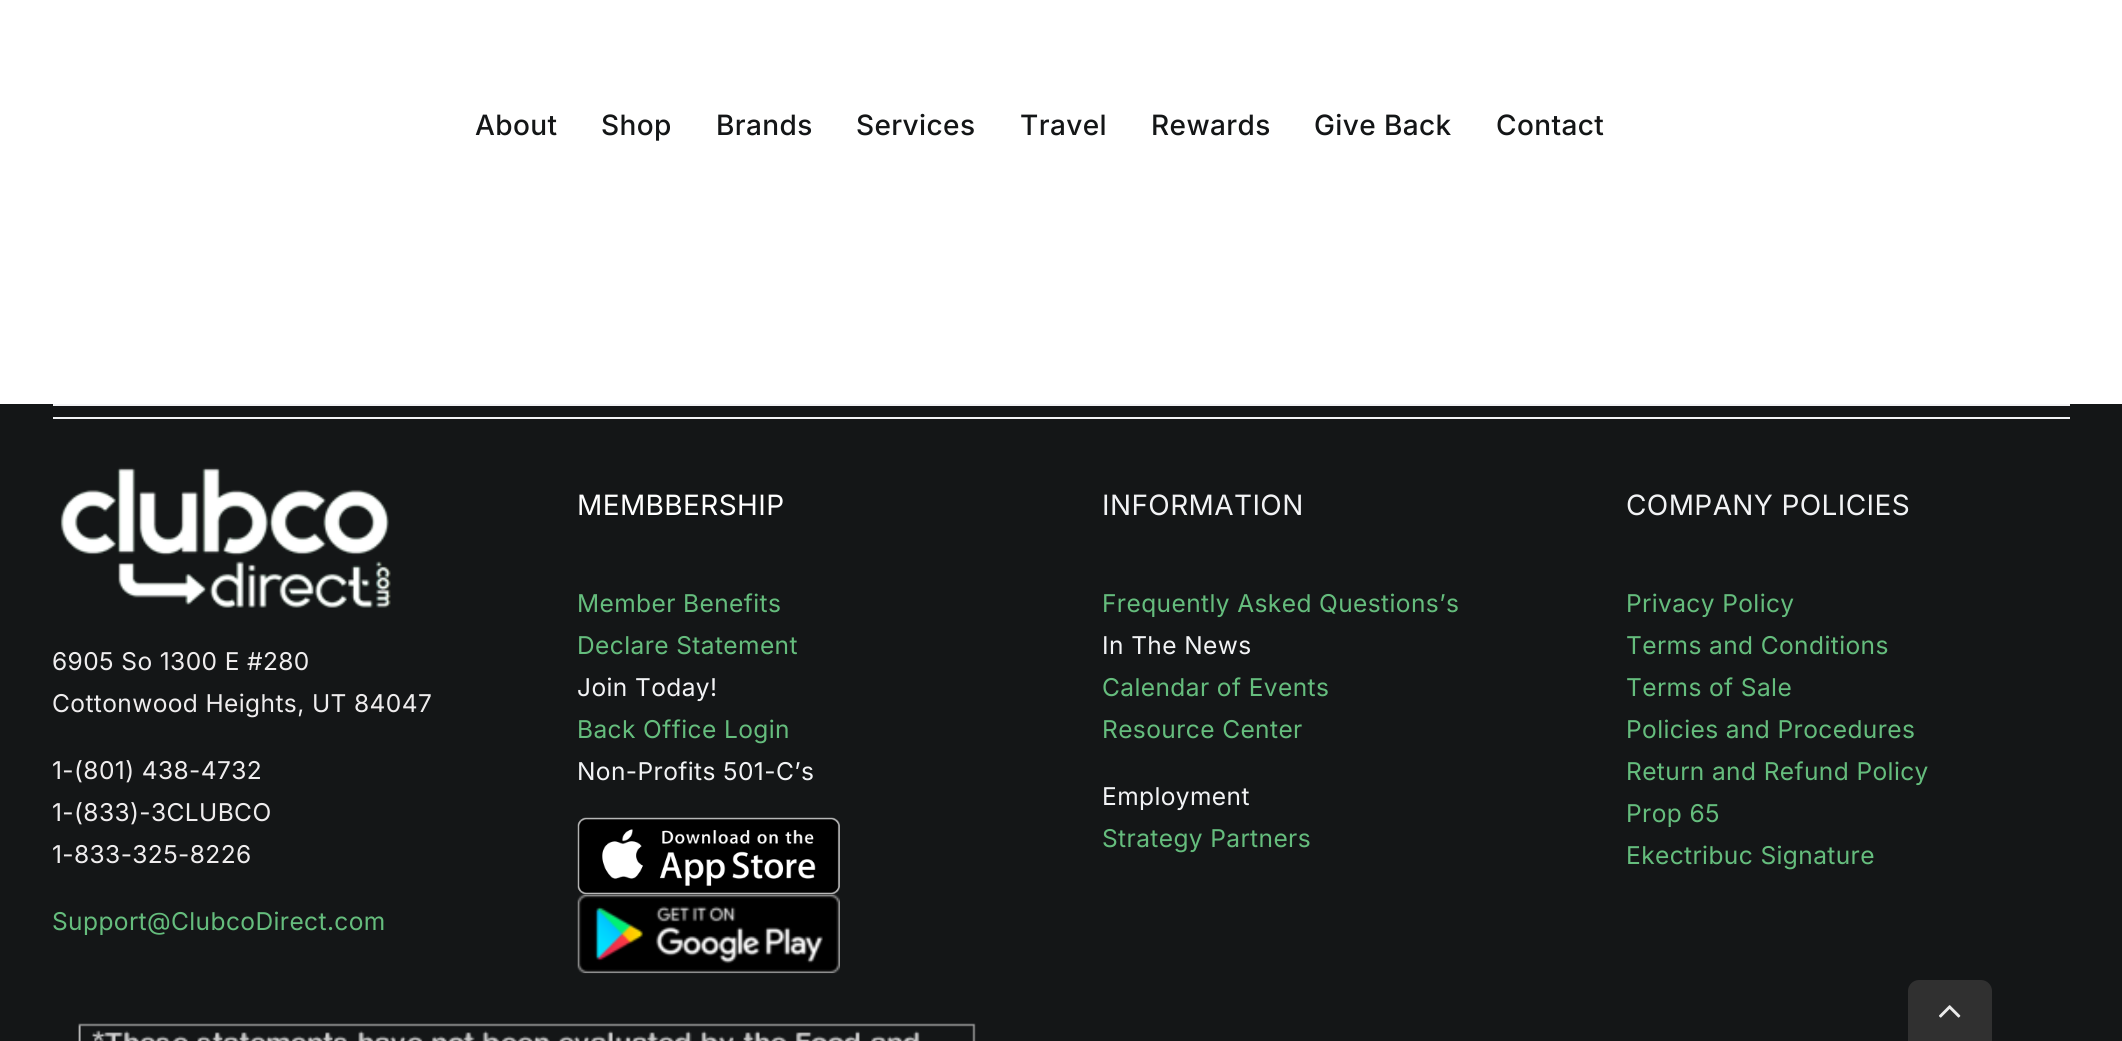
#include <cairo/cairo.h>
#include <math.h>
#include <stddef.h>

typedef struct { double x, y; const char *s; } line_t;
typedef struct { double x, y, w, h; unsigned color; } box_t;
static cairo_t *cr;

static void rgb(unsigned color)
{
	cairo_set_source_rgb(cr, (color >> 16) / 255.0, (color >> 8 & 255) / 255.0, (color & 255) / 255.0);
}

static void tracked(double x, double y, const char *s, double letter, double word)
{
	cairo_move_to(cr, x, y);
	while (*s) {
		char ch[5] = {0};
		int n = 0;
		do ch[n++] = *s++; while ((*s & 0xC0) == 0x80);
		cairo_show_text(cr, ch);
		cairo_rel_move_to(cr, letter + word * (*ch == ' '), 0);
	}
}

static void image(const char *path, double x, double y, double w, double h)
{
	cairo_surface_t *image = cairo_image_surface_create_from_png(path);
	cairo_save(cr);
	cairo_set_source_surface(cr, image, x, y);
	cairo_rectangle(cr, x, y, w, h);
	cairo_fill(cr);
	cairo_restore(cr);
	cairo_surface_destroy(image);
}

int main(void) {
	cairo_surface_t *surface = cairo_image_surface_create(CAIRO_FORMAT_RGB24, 2122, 1041);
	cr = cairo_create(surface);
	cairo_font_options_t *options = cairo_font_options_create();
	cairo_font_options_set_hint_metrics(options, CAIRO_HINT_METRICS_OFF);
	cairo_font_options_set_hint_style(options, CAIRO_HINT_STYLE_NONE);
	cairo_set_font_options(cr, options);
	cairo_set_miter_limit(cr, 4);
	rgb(0xffffff);
	cairo_paint(cr);
	{
		static const box_t items[] = {
			{0, 404, 2122, 637, 0x141617},
			{53, 404, 2017, 2, 0xf2f3f5},
			{53, 417, 2017, 2, 0xf2f3f5},
		};
		for (size_t i = 0; i < sizeof items / sizeof *items; i++) {
			rgb(items[i].color);
			cairo_rectangle(cr, items[i].x, items[i].y, items[i].w, items[i].h);
			cairo_fill(cr);
		}
	}
	image("img/1.png", 60, 467, 331, 141);
	image("img/2.png", 577, 817, 263, 78);
	image("img/3.png", 577, 894, 263, 80);
	image("img/4.png", 78, 1023, 898, 18);
	rgb(0x303030);
	cairo_new_path(cr);
	cairo_move_to(cr, 1919, 980);
	cairo_line_to(cr, 1981, 980);
	cairo_curve_to(cr, 1987, 980, 1992, 985, 1992, 991);
	cairo_line_to(cr, 1992, 1041);
	cairo_line_to(cr, 1908, 1041);
	cairo_line_to(cr, 1908, 991);
	cairo_curve_to(cr, 1908, 985, 1913, 980, 1919, 980);
	cairo_close_path(cr);
	cairo_fill(cr);
	image("img/5.png", 1939, 1005, 22, 13);
	cairo_select_font_face(cr, "Inter Medium", CAIRO_FONT_SLANT_NORMAL, CAIRO_FONT_WEIGHT_NORMAL);
	cairo_set_font_size(cr, 28);
	rgb(0x141617);
	{
		static const line_t items[] = {
			{475, 135, "About"},
			{601, 135, "Shop"},
			{716, 135, "Brands"},
			{856, 135, "Services"},
			{1020, 135, "Travel"},
			{1151, 135, "Rewards"},
			{1314, 135, "Give Back"},
			{1496, 135, "Contact"},
		};
		for (size_t i = 0; i < sizeof items / sizeof *items; i++) {
			tracked(items[i].x, items[i].y, items[i].s, 0.4, 0);
		}
	}
	cairo_select_font_face(cr, "Inter", CAIRO_FONT_SLANT_NORMAL, CAIRO_FONT_WEIGHT_NORMAL);
	cairo_set_font_size(cr, 24.5);
	rgb(0xefedee);
	{
		static const line_t items[] = {
			{52, 670, "6905 So 1300 E #280"},
			{52, 712, "Cottonwood Heights, UT 84047"},
			{52, 779, "1-(801) 438-4732"},
			{52, 821, "1-(833)-3CLUBCO"},
			{52, 863, "1-833-325-8226"},
		};
		for (size_t i = 0; i < sizeof items / sizeof *items; i++) {
			tracked(items[i].x, items[i].y, items[i].s, 0.4, 0);
		}
	}
	rgb(0x65bd7d);
	tracked(52, 930, "Support@ClubcoDirect.com", 0.4, 0);
	cairo_set_font_size(cr, 28);
	rgb(0xffffff);
	tracked(577, 515, "MEMBBERSHIP", 0.4, 0);
	cairo_set_font_size(cr, 24.5);
	rgb(0x65bd7d);
	tracked(577, 612, "Member Benefits", 0.4, 0);
	tracked(577, 654, "Declare Statement", 0.4, 0);
	rgb(0xf2f3f5);
	tracked(577, 696, "Join Today!", 0.4, 0);
	rgb(0x65bd7d);
	tracked(577, 738, "Back Office Login", 0.4, 0);
	rgb(0xf2f3f5);
	tracked(577, 780, "Non-Profits 501-C’s", 0.4, 0);
	cairo_set_font_size(cr, 28);
	tracked(1102, 515, "INFORMATION", 0.4, 0);
	cairo_set_font_size(cr, 24.5);
	rgb(0x65bd7d);
	tracked(1102, 612, "Frequently Asked Questions’s", 0.4, 0);
	rgb(0xf2f3f5);
	tracked(1102, 654, "In The News", 0.4, 0);
	rgb(0x65bd7d);
	tracked(1102, 696, "Calendar of Events", 0.4, 0);
	tracked(1102, 738, "Resource Center", 0.4, 0);
	rgb(0xf2f3f5);
	tracked(1102, 805, "Employment", 0.4, 0);
	rgb(0x65bd7d);
	tracked(1102, 847, "Strategy Partners", 0.4, 0);
	cairo_set_font_size(cr, 28);
	rgb(0xf2f3f5);
	tracked(1626, 515, "COMPANY POLICIES", 0.4, 0);
	cairo_set_font_size(cr, 24.5);
	rgb(0x65bd7d);
	{
		static const line_t items[] = {
			{1626, 612, "Privacy Policy"},
			{1626, 654, "Terms and Conditions"},
			{1626, 696, "Terms of Sale"},
			{1626, 738, "Policies and Procedures"},
			{1626, 780, "Return and Refund Policy"},
			{1626, 822, "Prop 65"},
			{1626, 864, "Ekectribuc Signature"},
		};
		for (size_t i = 0; i < sizeof items / sizeof *items; i++) {
			tracked(items[i].x, items[i].y, items[i].s, 0.4, 0);
		}
	}
	cairo_surface_write_to_png(surface, "page.png");
	cairo_font_options_destroy(options);
	cairo_destroy(cr);
	cairo_surface_destroy(surface);
	return 0;
}
